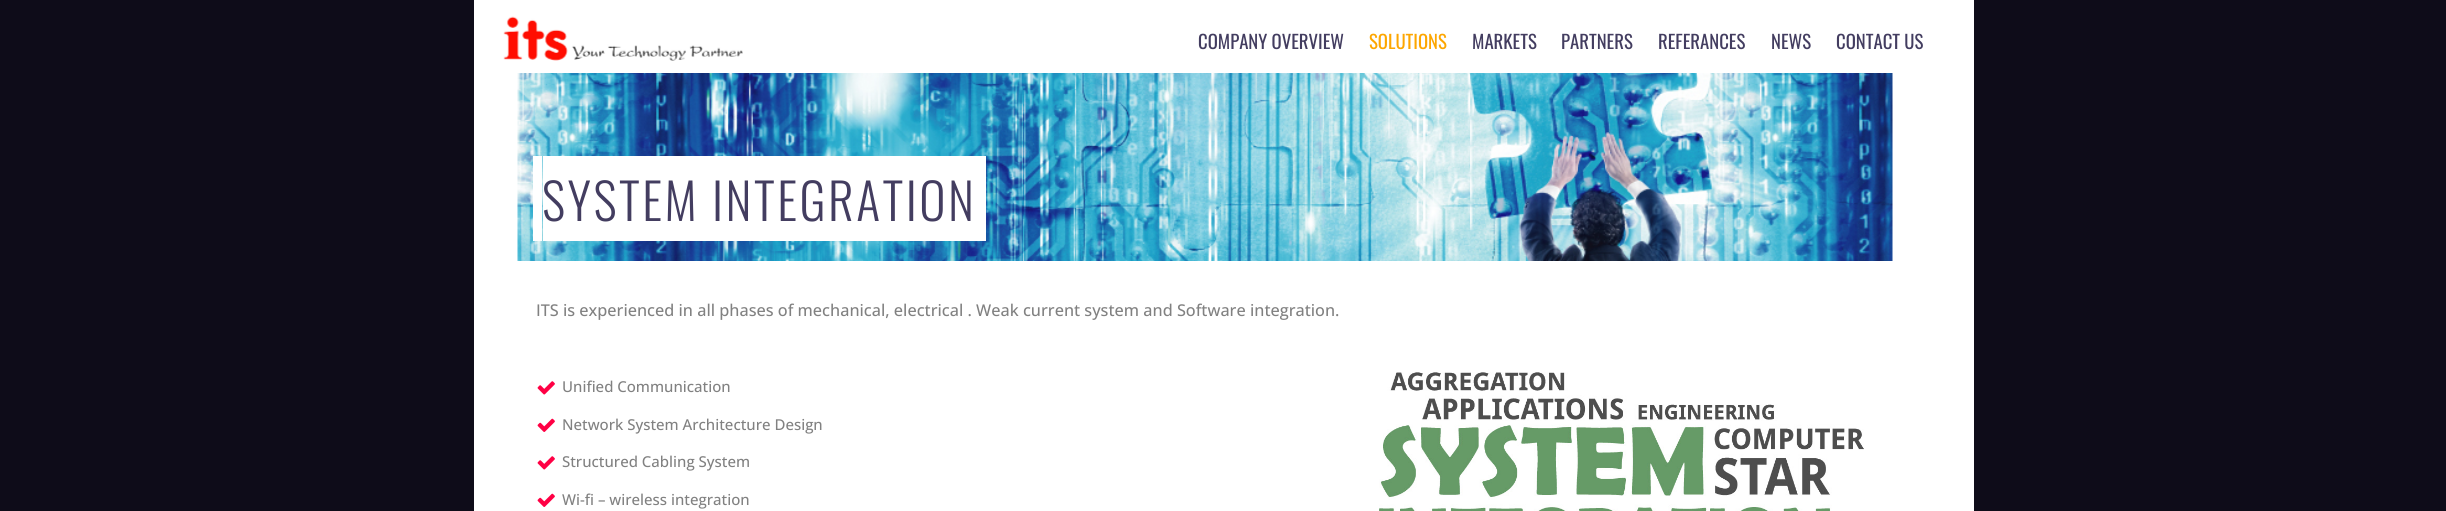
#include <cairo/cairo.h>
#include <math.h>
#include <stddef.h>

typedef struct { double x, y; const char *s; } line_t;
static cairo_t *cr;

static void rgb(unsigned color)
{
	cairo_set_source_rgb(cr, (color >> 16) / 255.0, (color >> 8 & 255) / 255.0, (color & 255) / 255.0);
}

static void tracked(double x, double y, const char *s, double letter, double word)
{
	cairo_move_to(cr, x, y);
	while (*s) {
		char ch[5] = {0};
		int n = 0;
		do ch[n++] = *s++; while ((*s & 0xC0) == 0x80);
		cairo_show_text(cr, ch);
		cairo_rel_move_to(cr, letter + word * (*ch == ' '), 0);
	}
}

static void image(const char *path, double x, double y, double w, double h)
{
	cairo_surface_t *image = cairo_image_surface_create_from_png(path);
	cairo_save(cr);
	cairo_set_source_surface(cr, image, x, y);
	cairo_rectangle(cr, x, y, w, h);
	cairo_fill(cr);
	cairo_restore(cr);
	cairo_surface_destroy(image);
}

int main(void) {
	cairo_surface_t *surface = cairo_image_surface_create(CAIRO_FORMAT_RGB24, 2446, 511);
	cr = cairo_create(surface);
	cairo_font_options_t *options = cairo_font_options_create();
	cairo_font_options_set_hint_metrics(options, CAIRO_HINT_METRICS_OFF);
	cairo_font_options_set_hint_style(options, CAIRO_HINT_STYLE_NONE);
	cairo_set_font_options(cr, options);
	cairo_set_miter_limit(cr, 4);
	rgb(0x0e0c19);
	cairo_paint(cr);
	rgb(0xffffff);
	cairo_rectangle(cr, 474, 0, 1500, 511);
	cairo_fill(cr);
	image("img/1.png", 503, 16, 240, 45);
	image("img/2.png", 517, 73, 1376, 188);
	cairo_new_path(cr);
	cairo_move_to(cr, 533, 156);
	cairo_line_to(cr, 533, 241);
	cairo_line_to(cr, 542, 241);
	cairo_line_to(cr, 542, 156);
	cairo_line_to(cr, 966, 156);
	cairo_close_path(cr);
	cairo_fill(cr);
	cairo_new_path(cr);
	cairo_move_to(cr, 553, 156);
	cairo_line_to(cr, 976, 156);
	cairo_line_to(cr, 976, 241);
	cairo_line_to(cr, 986, 241);
	cairo_line_to(cr, 986, 156);
	cairo_close_path(cr);
	cairo_fill(cr);
	cairo_rectangle(cr, 543, 156, 433, 85);
	cairo_fill(cr);
	image("img/3.png", 537, 381, 18, 14);
	image("img/4.png", 537, 418, 18, 14);
	image("img/3.png", 537, 456, 18, 14);
	image("img/4.png", 537, 493, 18, 14);
	image("img/5.png", 1379, 372, 485, 139);
	cairo_select_font_face(cr, "Oswald", CAIRO_FONT_SLANT_NORMAL, CAIRO_FONT_WEIGHT_NORMAL);
	cairo_set_font_size(cr, 18.75);
	rgb(0x433d60);
	cairo_move_to(cr, 1198, 49);
	cairo_show_text(cr, "COMPANY OVERVIEW");
	rgb(0xfda600);
	cairo_move_to(cr, 1369, 49);
	cairo_show_text(cr, "SOLUTIONS");
	rgb(0x433d60);
	{
		static const line_t items[] = {
			{1472, 49, "MARKETS"},
			{1561, 49, "PARTNERS"},
			{1658, 49, "REFERANCES"},
			{1771, 49, "NEWS"},
			{1836, 49, "CONTACT US"},
		};
		for (size_t i = 0; i < sizeof items / sizeof *items; i++) {
			cairo_move_to(cr, items[i].x, items[i].y);
			cairo_show_text(cr, items[i].s);
		}
	}
	cairo_select_font_face(cr, "Oswald Light", CAIRO_FONT_SLANT_NORMAL, CAIRO_FONT_WEIGHT_NORMAL);
	cairo_set_font_size(cr, 50);
	tracked(542, 221, "SYSTEM INTEGRATION", 2.5, 0);
	cairo_select_font_face(cr, "Open Sans Medium", CAIRO_FONT_SLANT_NORMAL, CAIRO_FONT_WEIGHT_NORMAL);
	cairo_set_font_size(cr, 16.25);
	rgb(0x818181);
	cairo_move_to(cr, 536, 316);
	cairo_show_text(cr, "ITS is experienced in all phases of mechanical, electrical . Weak current system and Software integration.");
	cairo_set_font_size(cr, 15);
	{
		static const line_t items[] = {
			{562, 392, "Unified Communication"},
			{562, 430, "Network System Architecture Design"},
			{562, 467, "Structured Cabling System"},
			{562, 505, "Wi-fi – wireless integration"},
		};
		for (size_t i = 0; i < sizeof items / sizeof *items; i++) {
			cairo_move_to(cr, items[i].x, items[i].y);
			cairo_show_text(cr, items[i].s);
		}
	}
	cairo_surface_write_to_png(surface, "page.png");
	cairo_font_options_destroy(options);
	cairo_destroy(cr);
	cairo_surface_destroy(surface);
	return 0;
}
